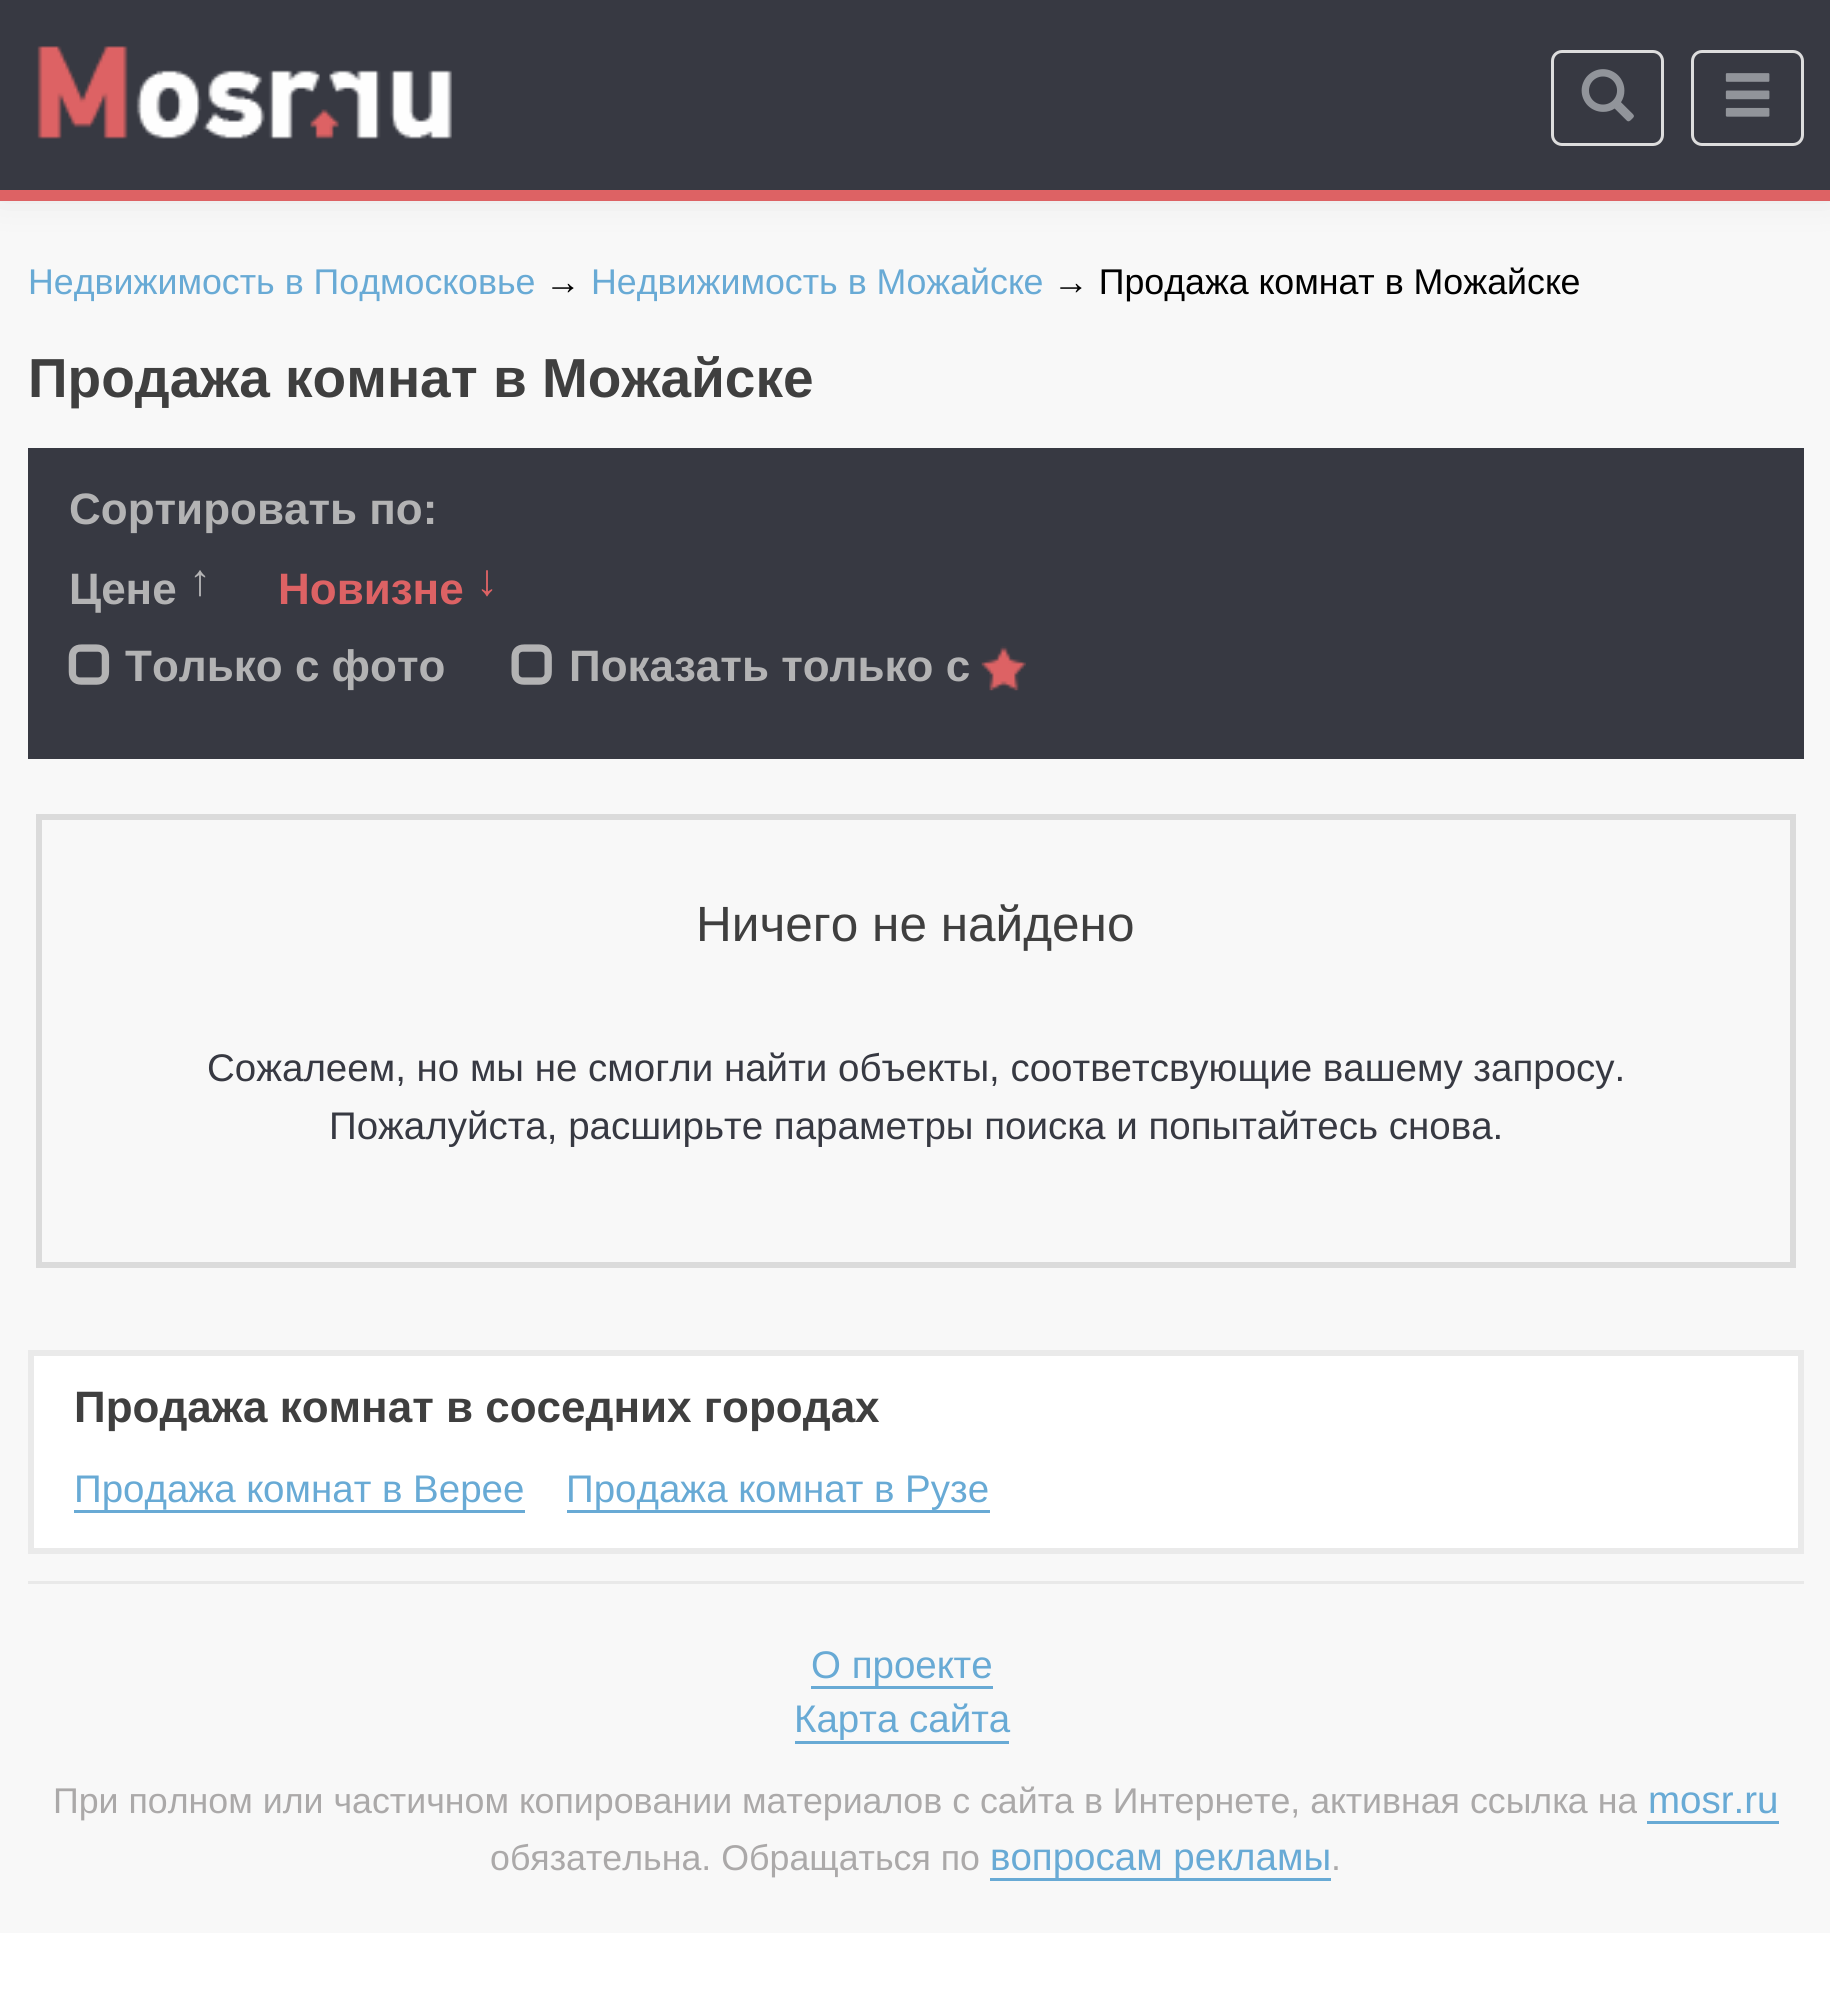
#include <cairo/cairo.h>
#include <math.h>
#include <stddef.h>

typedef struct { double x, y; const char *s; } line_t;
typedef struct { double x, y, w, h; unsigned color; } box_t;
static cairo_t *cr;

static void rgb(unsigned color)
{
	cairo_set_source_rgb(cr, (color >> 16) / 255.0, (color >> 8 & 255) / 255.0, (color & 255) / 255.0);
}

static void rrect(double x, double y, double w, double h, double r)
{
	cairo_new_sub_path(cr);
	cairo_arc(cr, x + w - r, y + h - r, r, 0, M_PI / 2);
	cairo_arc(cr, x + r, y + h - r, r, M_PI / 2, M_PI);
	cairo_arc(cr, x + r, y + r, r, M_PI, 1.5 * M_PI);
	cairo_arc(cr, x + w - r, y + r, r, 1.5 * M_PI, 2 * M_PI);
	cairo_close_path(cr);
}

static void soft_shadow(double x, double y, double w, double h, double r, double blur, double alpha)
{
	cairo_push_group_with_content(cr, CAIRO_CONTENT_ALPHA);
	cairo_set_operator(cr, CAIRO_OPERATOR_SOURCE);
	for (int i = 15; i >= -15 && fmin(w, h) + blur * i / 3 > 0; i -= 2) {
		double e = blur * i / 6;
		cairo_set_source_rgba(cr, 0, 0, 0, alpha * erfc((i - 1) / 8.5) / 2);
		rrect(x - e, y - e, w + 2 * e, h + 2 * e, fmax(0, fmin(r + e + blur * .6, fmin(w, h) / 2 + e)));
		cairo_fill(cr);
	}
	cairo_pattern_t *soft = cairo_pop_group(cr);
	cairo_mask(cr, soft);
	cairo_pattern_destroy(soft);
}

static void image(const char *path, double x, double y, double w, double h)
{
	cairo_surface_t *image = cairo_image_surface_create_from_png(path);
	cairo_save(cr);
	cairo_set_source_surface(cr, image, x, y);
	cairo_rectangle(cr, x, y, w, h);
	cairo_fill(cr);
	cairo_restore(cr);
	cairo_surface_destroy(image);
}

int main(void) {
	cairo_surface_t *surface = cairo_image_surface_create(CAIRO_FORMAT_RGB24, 1830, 2007);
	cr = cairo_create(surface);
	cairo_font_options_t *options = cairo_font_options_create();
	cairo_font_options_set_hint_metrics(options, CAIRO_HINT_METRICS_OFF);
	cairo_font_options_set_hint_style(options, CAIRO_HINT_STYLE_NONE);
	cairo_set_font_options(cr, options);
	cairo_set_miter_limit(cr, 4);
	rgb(0xffffff);
	cairo_paint(cr);
	rgb(0xf8f8f8);
	cairo_rectangle(cr, 0, 201, 1830, 1732);
	cairo_fill(cr);
	rgb(0xd2d2d2);
	soft_shadow(0, -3, 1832, 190, 0, 20.5, 1);
	rgb(0x373942);
	cairo_rectangle(cr, 0, 0, 1830, 190);
	cairo_fill(cr);
	image("img/1.png", 37, 46, 415, 93);
	rrect(1552.5, 51.5, 110, 93, 9.5);
	rgb(0xdddddd);
	cairo_set_line_width(cr, 3);
	cairo_stroke(cr);
	image("img/2.png", 1581, 69, 53, 53);
	rrect(1692.5, 51.5, 110, 93, 9.5);
	cairo_stroke(cr);
	image("img/3.png", 1725, 73, 45, 44);
	rgb(0xdd6264);
	cairo_rectangle(cr, 0, 190, 1830, 11);
	cairo_fill(cr);
	rgb(0x373942);
	cairo_rectangle(cr, 28, 448, 1776, 311);
	cairo_fill(cr);
	image("img/4.png", 68, 644, 42, 41);
	image("img/5.png", 511, 644, 41, 41);
	image("img/6.png", 981, 646, 45, 45);
	cairo_rectangle(cr, 39, 817, 1754, 448);
	rgb(0xdbdbdb);
	cairo_set_line_width(cr, 6);
	cairo_stroke(cr);
	rgb(0xffffff);
	cairo_rectangle(cr, 31, 1353, 1770, 198);
	cairo_fill_preserve(cr);
	rgb(0xeaeaea);
	cairo_stroke(cr);
	{
		static const box_t items[] = {
			{74, 1510, 451, 3, 0x68aad5},
			{567, 1510, 423, 3, 0x68aad5},
			{28, 1581, 1776, 3, 0xe9e9e9},
			{811, 1686, 182, 3, 0x68aad5},
			{795, 1741, 214, 3, 0x68aad5},
			{1647, 1821, 132, 3, 0x68aad5},
			{990, 1878, 341, 3, 0x68aad5},
		};
		for (size_t i = 0; i < sizeof items / sizeof *items; i++) {
			rgb(items[i].color);
			cairo_rectangle(cr, items[i].x, items[i].y, items[i].w, items[i].h);
			cairo_fill(cr);
		}
	}
	cairo_select_font_face(cr, "Liberation Sans", CAIRO_FONT_SLANT_NORMAL, CAIRO_FONT_WEIGHT_NORMAL);
	cairo_set_font_size(cr, 35.75);
	cairo_move_to(cr, 28, 294);
	cairo_show_text(cr, "Недвижимость в Подмосковье");
	rgb(0x000000);
	cairo_move_to(cr, 545, 294);
	cairo_show_text(cr, "→");
	rgb(0x68aad5);
	cairo_move_to(cr, 591, 294);
	cairo_show_text(cr, "Недвижимость в Можайске");
	rgb(0x000000);
	cairo_move_to(cr, 1053, 294);
	cairo_show_text(cr, "→ Продажа комнат в Можайске");
	cairo_select_font_face(cr, "Liberation Sans", CAIRO_FONT_SLANT_NORMAL, CAIRO_FONT_WEIGHT_BOLD);
	cairo_set_font_size(cr, 55);
	rgb(0x3f3f3f);
	cairo_move_to(cr, 28, 397);
	cairo_show_text(cr, "Продажа комнат в Можайске");
	cairo_set_font_size(cr, 44);
	rgb(0xb3b3b4);
	{
		static const line_t items[] = {
			{69, 524, "Сортировать по:"},
			{69, 604, "Цене"},
			{189, 595, "↑"},
		};
		for (size_t i = 0; i < sizeof items / sizeof *items; i++) {
			cairo_move_to(cr, items[i].x, items[i].y);
			cairo_show_text(cr, items[i].s);
		}
	}
	rgb(0xdd6264);
	cairo_move_to(cr, 278, 604);
	cairo_show_text(cr, "Новизне");
	cairo_move_to(cr, 476, 595);
	cairo_show_text(cr, "↓");
	rgb(0xb3b3b4);
	cairo_move_to(cr, 125, 681);
	cairo_show_text(cr, "Только с фото");
	cairo_move_to(cr, 569, 681);
	cairo_show_text(cr, "Показать только с");
	cairo_select_font_face(cr, "Liberation Sans", CAIRO_FONT_SLANT_NORMAL, CAIRO_FONT_WEIGHT_NORMAL);
	cairo_set_font_size(cr, 49.5);
	rgb(0x3f3f3f);
	cairo_move_to(cr, 696, 941);
	cairo_show_text(cr, "Ничего не найдено");
	cairo_set_font_size(cr, 38.5);
	rgb(0x373942);
	cairo_move_to(cr, 207, 1081);
	cairo_show_text(cr, "Сожалеем, но мы не смогли найти объекты, соответсвующие вашему запросу.");
	cairo_move_to(cr, 329, 1139);
	cairo_show_text(cr, "Пожалуйста, расширьте параметры поиска и попытайтесь снова.");
	cairo_select_font_face(cr, "Liberation Sans", CAIRO_FONT_SLANT_NORMAL, CAIRO_FONT_WEIGHT_BOLD);
	cairo_set_font_size(cr, 44);
	rgb(0x3f3f3f);
	cairo_move_to(cr, 74, 1422);
	cairo_show_text(cr, "Продажа комнат в соседних городах");
	cairo_select_font_face(cr, "Liberation Sans", CAIRO_FONT_SLANT_NORMAL, CAIRO_FONT_WEIGHT_NORMAL);
	cairo_set_font_size(cr, 38.5);
	rgb(0x68aad5);
	{
		static const line_t items[] = {
			{74, 1502, "Продажа комнат в Верее"},
			{566, 1502, "Продажа комнат в Рузе"},
			{811, 1678, "О проекте"},
			{794, 1732, "Карта сайта"},
		};
		for (size_t i = 0; i < sizeof items / sizeof *items; i++) {
			cairo_move_to(cr, items[i].x, items[i].y);
			cairo_show_text(cr, items[i].s);
		}
	}
	cairo_set_font_size(cr, 35.75);
	rgb(0xaba9a9);
	cairo_move_to(cr, 53, 1813);
	cairo_show_text(cr, "При полном или частичном копировании материалов с сайта в Интернете, активная ссылка на");
	cairo_set_font_size(cr, 38.5);
	rgb(0x68aad5);
	cairo_move_to(cr, 1648, 1813);
	cairo_show_text(cr, "mosr.ru");
	cairo_set_font_size(cr, 35.75);
	rgb(0xaba9a9);
	cairo_move_to(cr, 490, 1870);
	cairo_show_text(cr, "обязательна. Обращаться по");
	cairo_set_font_size(cr, 38.5);
	rgb(0x68aad5);
	cairo_move_to(cr, 990, 1870);
	cairo_show_text(cr, "вопросам рекламы");
	cairo_set_font_size(cr, 35.75);
	rgb(0xaba9a9);
	cairo_move_to(cr, 1331, 1870);
	cairo_show_text(cr, ".");
	cairo_surface_write_to_png(surface, "page.png");
	cairo_font_options_destroy(options);
	cairo_destroy(cr);
	cairo_surface_destroy(surface);
	return 0;
}
